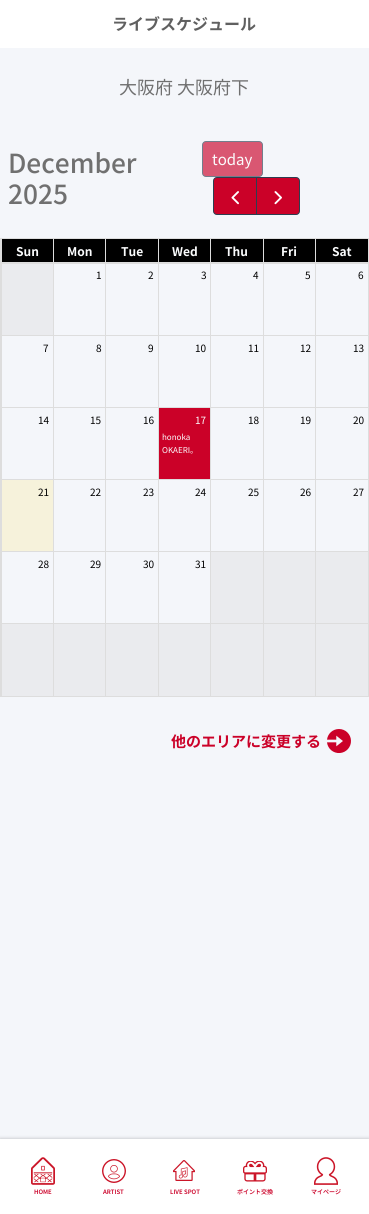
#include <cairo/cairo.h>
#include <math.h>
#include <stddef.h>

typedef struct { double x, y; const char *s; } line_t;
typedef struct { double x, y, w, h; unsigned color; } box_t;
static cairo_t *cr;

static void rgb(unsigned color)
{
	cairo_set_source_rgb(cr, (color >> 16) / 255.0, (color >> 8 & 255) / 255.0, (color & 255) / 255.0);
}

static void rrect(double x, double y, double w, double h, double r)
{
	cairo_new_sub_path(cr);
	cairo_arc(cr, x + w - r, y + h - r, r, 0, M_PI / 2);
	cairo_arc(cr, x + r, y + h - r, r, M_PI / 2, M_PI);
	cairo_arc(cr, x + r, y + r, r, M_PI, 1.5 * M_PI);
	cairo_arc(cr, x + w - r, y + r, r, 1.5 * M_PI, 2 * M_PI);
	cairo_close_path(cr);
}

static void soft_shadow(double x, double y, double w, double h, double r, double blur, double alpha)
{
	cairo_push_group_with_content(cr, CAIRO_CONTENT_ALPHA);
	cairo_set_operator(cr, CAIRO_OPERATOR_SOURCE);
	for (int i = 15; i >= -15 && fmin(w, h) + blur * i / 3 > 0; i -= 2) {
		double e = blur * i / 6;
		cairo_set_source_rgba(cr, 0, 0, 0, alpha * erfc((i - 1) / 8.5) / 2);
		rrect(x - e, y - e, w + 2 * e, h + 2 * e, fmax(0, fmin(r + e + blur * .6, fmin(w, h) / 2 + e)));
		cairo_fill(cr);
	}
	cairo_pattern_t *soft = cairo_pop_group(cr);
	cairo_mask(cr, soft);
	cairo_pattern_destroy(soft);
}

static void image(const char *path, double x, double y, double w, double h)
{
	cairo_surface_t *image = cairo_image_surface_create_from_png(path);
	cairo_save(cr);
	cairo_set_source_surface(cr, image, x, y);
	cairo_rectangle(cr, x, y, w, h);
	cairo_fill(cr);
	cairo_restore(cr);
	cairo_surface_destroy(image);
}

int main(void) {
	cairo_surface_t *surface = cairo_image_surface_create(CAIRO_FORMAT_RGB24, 369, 1214);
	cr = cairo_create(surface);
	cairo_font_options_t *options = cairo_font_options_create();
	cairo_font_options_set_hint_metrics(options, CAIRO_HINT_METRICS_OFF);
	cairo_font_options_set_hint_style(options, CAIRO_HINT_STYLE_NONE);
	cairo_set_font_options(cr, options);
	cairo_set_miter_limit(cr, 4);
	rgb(0xf4f6fa);
	cairo_paint(cr);
	rgb(0xffffff);
	cairo_rectangle(cr, 0, 0, 369, 48);
	cairo_fill(cr);
	rgb(0xd95772);
	rrect(202.5, 141.5, 60, 35, 3.5);
	cairo_fill_preserve(cr);
	rgb(0x727e8c);
	cairo_set_line_width(cr, 1);
	cairo_stroke(cr);
	rgb(0xcb0128);
	cairo_new_path(cr);
	cairo_move_to(cr, 217, 177.5);
	cairo_line_to(cr, 256.5, 177.5);
	cairo_line_to(cr, 256.5, 214.5);
	cairo_line_to(cr, 217, 214.5);
	cairo_curve_to(cr, 215, 214.5, 213.5, 213, 213.5, 211);
	cairo_line_to(cr, 213.5, 181);
	cairo_curve_to(cr, 213.5, 179, 215, 177.5, 217, 177.5);
	cairo_close_path(cr);
	cairo_fill_preserve(cr);
	rgb(0x2c3e50);
	cairo_stroke(cr);
	image("img/1.png", 231, 191, 8, 14);
	rgb(0xcb0128);
	cairo_new_path(cr);
	cairo_move_to(cr, 256.5, 177.5);
	cairo_line_to(cr, 296, 177.5);
	cairo_curve_to(cr, 298, 177.5, 299.5, 179, 299.5, 181);
	cairo_line_to(cr, 299.5, 211);
	cairo_curve_to(cr, 299.5, 213, 298, 214.5, 296, 214.5);
	cairo_line_to(cr, 256.5, 214.5);
	cairo_close_path(cr);
	cairo_fill_preserve(cr);
	rgb(0x2c3e50);
	cairo_stroke(cr);
	image("img/2.png", 274, 191, 8, 14);
	{
		static const box_t items[] = {
			{0, 238, 369, 1, 0xdddddd},
			{0, 238, 1, 459, 0xdddddd},
			{368, 239, 1, 458, 0xdddddd},
			{2, 239, 366, 23, 0x000000},
			{315, 262, 53, 2, 0xdddddd},
			{315, 239, 1, 24, 0xdddddd},
			{263, 262, 53, 1, 0xdddddd},
			{263, 239, 1, 24, 0xdddddd},
			{210, 262, 54, 1, 0xdddddd},
			{210, 239, 1, 24, 0xdddddd},
			{158, 262, 53, 1, 0xdddddd},
			{158, 239, 1, 24, 0xdddddd},
			{105, 262, 54, 1, 0xdddddd},
			{105, 239, 1, 24, 0xdddddd},
			{53, 262, 53, 1, 0xdddddd},
			{53, 239, 1, 24, 0xdddddd},
			{1, 262, 53, 1, 0xdddddd},
			{1, 239, 1, 24, 0xdddddd},
			{1, 696, 368, 1, 0xdddddd},
			{2, 264, 51, 71, 0xeaebee},
			{315, 335, 53, 1, 0xdddddd},
			{315, 407, 53, 1, 0xdddddd},
			{315, 479, 53, 1, 0xdddddd},
			{315, 551, 53, 1, 0xdddddd},
			{315, 623, 53, 1, 0xdddddd},
			{315, 623, 1, 73, 0xdddddd},
			{263, 623, 53, 1, 0xdddddd},
			{315, 551, 1, 73, 0xdddddd},
			{263, 551, 53, 1, 0xdddddd},
			{315, 479, 1, 73, 0xdddddd},
			{263, 479, 53, 1, 0xdddddd},
			{315, 407, 1, 73, 0xdddddd},
			{263, 407, 53, 1, 0xdddddd},
			{315, 335, 1, 73, 0xdddddd},
			{263, 335, 53, 1, 0xdddddd},
			{315, 263, 1, 73, 0xdddddd},
			{263, 263, 53, 1, 0xdddddd},
			{263, 623, 1, 73, 0xdddddd},
			{210, 623, 54, 1, 0xdddddd},
			{263, 551, 1, 73, 0xdddddd},
			{210, 551, 54, 1, 0xdddddd},
			{263, 479, 1, 73, 0xdddddd},
			{210, 479, 54, 1, 0xdddddd},
			{263, 407, 1, 73, 0xdddddd},
			{210, 407, 54, 1, 0xdddddd},
			{263, 335, 1, 73, 0xdddddd},
			{210, 335, 54, 1, 0xdddddd},
			{263, 263, 1, 73, 0xdddddd},
			{210, 263, 54, 1, 0xdddddd},
			{210, 623, 1, 73, 0xdddddd},
			{158, 623, 53, 1, 0xdddddd},
			{210, 551, 1, 73, 0xdddddd},
			{158, 551, 53, 1, 0xdddddd},
			{210, 479, 1, 73, 0xdddddd},
			{158, 479, 53, 1, 0xdddddd},
			{210, 407, 1, 73, 0xdddddd},
			{158, 407, 53, 1, 0xdddddd},
			{210, 335, 1, 73, 0xdddddd},
			{158, 335, 53, 1, 0xdddddd},
			{210, 263, 1, 73, 0xdddddd},
			{158, 263, 53, 1, 0xdddddd},
			{158, 623, 1, 73, 0xdddddd},
			{105, 623, 54, 1, 0xdddddd},
			{158, 551, 1, 73, 0xdddddd},
			{105, 551, 54, 1, 0xdddddd},
			{158, 479, 1, 73, 0xdddddd},
			{105, 479, 54, 1, 0xdddddd},
			{158, 407, 1, 73, 0xdddddd},
			{105, 407, 54, 1, 0xdddddd},
			{158, 335, 1, 73, 0xdddddd},
			{105, 335, 54, 1, 0xdddddd},
			{158, 263, 1, 73, 0xdddddd},
			{105, 263, 54, 1, 0xdddddd},
			{105, 623, 1, 73, 0xdddddd},
			{53, 623, 53, 1, 0xdddddd},
			{105, 551, 1, 73, 0xdddddd},
			{53, 551, 53, 1, 0xdddddd},
			{105, 479, 1, 73, 0xdddddd},
			{53, 479, 53, 1, 0xdddddd},
			{105, 407, 1, 73, 0xdddddd},
			{53, 407, 53, 1, 0xdddddd},
			{105, 335, 1, 73, 0xdddddd},
			{53, 335, 53, 1, 0xdddddd},
			{105, 263, 1, 73, 0xdddddd},
			{53, 263, 53, 1, 0xdddddd},
			{53, 623, 1, 73, 0xdddddd},
			{1, 623, 53, 1, 0xdddddd},
			{53, 551, 1, 73, 0xdddddd},
			{1, 551, 53, 1, 0xdddddd},
			{53, 479, 1, 73, 0xdddddd},
			{1, 479, 53, 1, 0xdddddd},
			{53, 407, 1, 73, 0xdddddd},
			{1, 407, 53, 1, 0xdddddd},
			{53, 335, 1, 73, 0xdddddd},
			{1, 335, 53, 1, 0xdddddd},
			{53, 263, 1, 73, 0xdddddd},
			{1, 263, 53, 1, 0xdddddd},
			{1, 623, 1, 73, 0xdddddd},
			{1, 551, 1, 73, 0xdddddd},
			{1, 479, 1, 73, 0xdddddd},
			{1, 407, 1, 73, 0xdddddd},
			{1, 335, 1, 73, 0xdddddd},
			{1, 263, 1, 73, 0xdddddd},
			{159, 408, 51, 71, 0xcb0128},
			{2, 480, 51, 71, 0xf6f2db},
			{211, 552, 52, 71, 0xeaebee},
			{264, 552, 51, 71, 0xeaebee},
			{316, 552, 52, 71, 0xeaebee},
			{2, 624, 51, 72, 0xeaebee},
			{54, 624, 51, 72, 0xeaebee},
			{106, 624, 52, 72, 0xeaebee},
			{159, 624, 51, 72, 0xeaebee},
			{211, 624, 52, 72, 0xeaebee},
			{264, 624, 51, 72, 0xeaebee},
			{316, 624, 52, 72, 0xeaebee},
		};
		for (size_t i = 0; i < sizeof items / sizeof *items; i++) {
			rgb(items[i].color);
			cairo_rectangle(cr, items[i].x, items[i].y, items[i].w, items[i].h);
			cairo_fill(cr);
		}
	}
	image("img/3.png", 327, 729, 24, 24);
	rgb(0x000000);
	soft_shadow(0, 1139, 369, 75, 0, 2, 0.25);
	rgb(0xffffff);
	cairo_rectangle(cr, 0, 1139, 369, 75);
	cairo_fill(cr);
	image("img/4.png", 31, 1157, 24, 28);
	image("img/5.png", 102, 1159, 24, 24);
	image("img/6.png", 173, 1160, 22, 21);
	image("img/7.png", 243, 1161, 24, 21);
	image("img/8.png", 314, 1157, 24, 28);
	cairo_select_font_face(cr, "Noto Sans JP", CAIRO_FONT_SLANT_NORMAL, CAIRO_FONT_WEIGHT_BOLD);
	cairo_set_font_size(cr, 16);
	rgb(0x606060);
	cairo_move_to(cr, 112, 30);
	cairo_show_text(cr, "ライブスケジュール");
	cairo_select_font_face(cr, "Noto Sans JP", CAIRO_FONT_SLANT_NORMAL, CAIRO_FONT_WEIGHT_NORMAL);
	cairo_set_font_size(cr, 18);
	rgb(0x707070);
	cairo_move_to(cr, 119, 94);
	cairo_show_text(cr, "大阪府 大阪府下");
	cairo_select_font_face(cr, "Noto Sans JP Medium", CAIRO_FONT_SLANT_NORMAL, CAIRO_FONT_WEIGHT_NORMAL);
	cairo_set_font_size(cr, 26.25);
	cairo_move_to(cr, 8, 173);
	cairo_show_text(cr, "December");
	cairo_move_to(cr, 8, 204);
	cairo_show_text(cr, "2025");
	cairo_select_font_face(cr, "Noto Sans JP", CAIRO_FONT_SLANT_NORMAL, CAIRO_FONT_WEIGHT_NORMAL);
	cairo_set_font_size(cr, 15);
	rgb(0xfbfcfd);
	cairo_move_to(cr, 212, 165);
	cairo_show_text(cr, "today");
	cairo_select_font_face(cr, "Noto Sans JP", CAIRO_FONT_SLANT_NORMAL, CAIRO_FONT_WEIGHT_BOLD);
	cairo_set_font_size(cr, 12);
	{
		static const line_t items[] = {
			{16, 256, "Sun"},
			{67, 256, "Mon"},
			{121, 256, "Tue"},
			{172, 256, "Wed"},
			{225, 256, "Thu"},
			{281, 256, "Fri"},
			{332, 256, "Sat"},
		};
		for (size_t i = 0; i < sizeof items / sizeof *items; i++) {
			cairo_move_to(cr, items[i].x, items[i].y);
			cairo_show_text(cr, items[i].s);
		}
	}
	cairo_select_font_face(cr, "Noto Sans JP", CAIRO_FONT_SLANT_NORMAL, CAIRO_FONT_WEIGHT_NORMAL);
	cairo_set_font_size(cr, 10);
	rgb(0x000000);
	{
		static const line_t items[] = {
			{96, 279, "1"},
			{148, 279, "2"},
			{201, 279, "3"},
			{253, 279, "4"},
			{305, 279, "5"},
			{358, 279, "6"},
			{43, 352, "7"},
			{96, 352, "8"},
			{148, 352, "9"},
			{195, 352, "10"},
			{248, 352, "11"},
			{300, 352, "12"},
			{353, 352, "13"},
			{38, 424, "14"},
			{90, 424, "15"},
			{143, 424, "16"},
		};
		for (size_t i = 0; i < sizeof items / sizeof *items; i++) {
			cairo_move_to(cr, items[i].x, items[i].y);
			cairo_show_text(cr, items[i].s);
		}
	}
	rgb(0xfbfcfd);
	cairo_move_to(cr, 195, 424);
	cairo_show_text(cr, "17");
	cairo_set_font_size(cr, 8);
	cairo_move_to(cr, 162, 440);
	cairo_show_text(cr, "honoka");
	cairo_move_to(cr, 162, 453);
	cairo_show_text(cr, "OKAERI。");
	cairo_set_font_size(cr, 10);
	rgb(0x000000);
	{
		static const line_t items[] = {
			{248, 424, "18"},
			{300, 424, "19"},
			{353, 424, "20"},
			{38, 496, "21"},
			{90, 496, "22"},
			{143, 496, "23"},
			{195, 496, "24"},
			{248, 496, "25"},
			{300, 496, "26"},
			{353, 496, "27"},
			{38, 568, "28"},
			{90, 568, "29"},
			{143, 568, "30"},
			{195, 568, "31"},
		};
		for (size_t i = 0; i < sizeof items / sizeof *items; i++) {
			cairo_move_to(cr, items[i].x, items[i].y);
			cairo_show_text(cr, items[i].s);
		}
	}
	cairo_select_font_face(cr, "Noto Sans JP", CAIRO_FONT_SLANT_NORMAL, CAIRO_FONT_WEIGHT_BOLD);
	cairo_set_font_size(cr, 15);
	rgb(0xcb0128);
	cairo_move_to(cr, 171, 747);
	cairo_show_text(cr, "他のエリアに変更する");
	cairo_select_font_face(cr, "Noto Sans JP SemiBold", CAIRO_FONT_SLANT_NORMAL, CAIRO_FONT_WEIGHT_NORMAL);
	cairo_set_font_size(cr, 6);
	{
		static const line_t items[] = {
			{34, 1194, "HOME"},
			{103, 1194, "ARTIST"},
			{170, 1194, "LIVE SPOT"},
			{237, 1194, "ポイント交換"},
			{311, 1194, "マイページ"},
		};
		for (size_t i = 0; i < sizeof items / sizeof *items; i++) {
			cairo_move_to(cr, items[i].x, items[i].y);
			cairo_show_text(cr, items[i].s);
		}
	}
	cairo_surface_write_to_png(surface, "page.png");
	cairo_font_options_destroy(options);
	cairo_destroy(cr);
	cairo_surface_destroy(surface);
	return 0;
}
